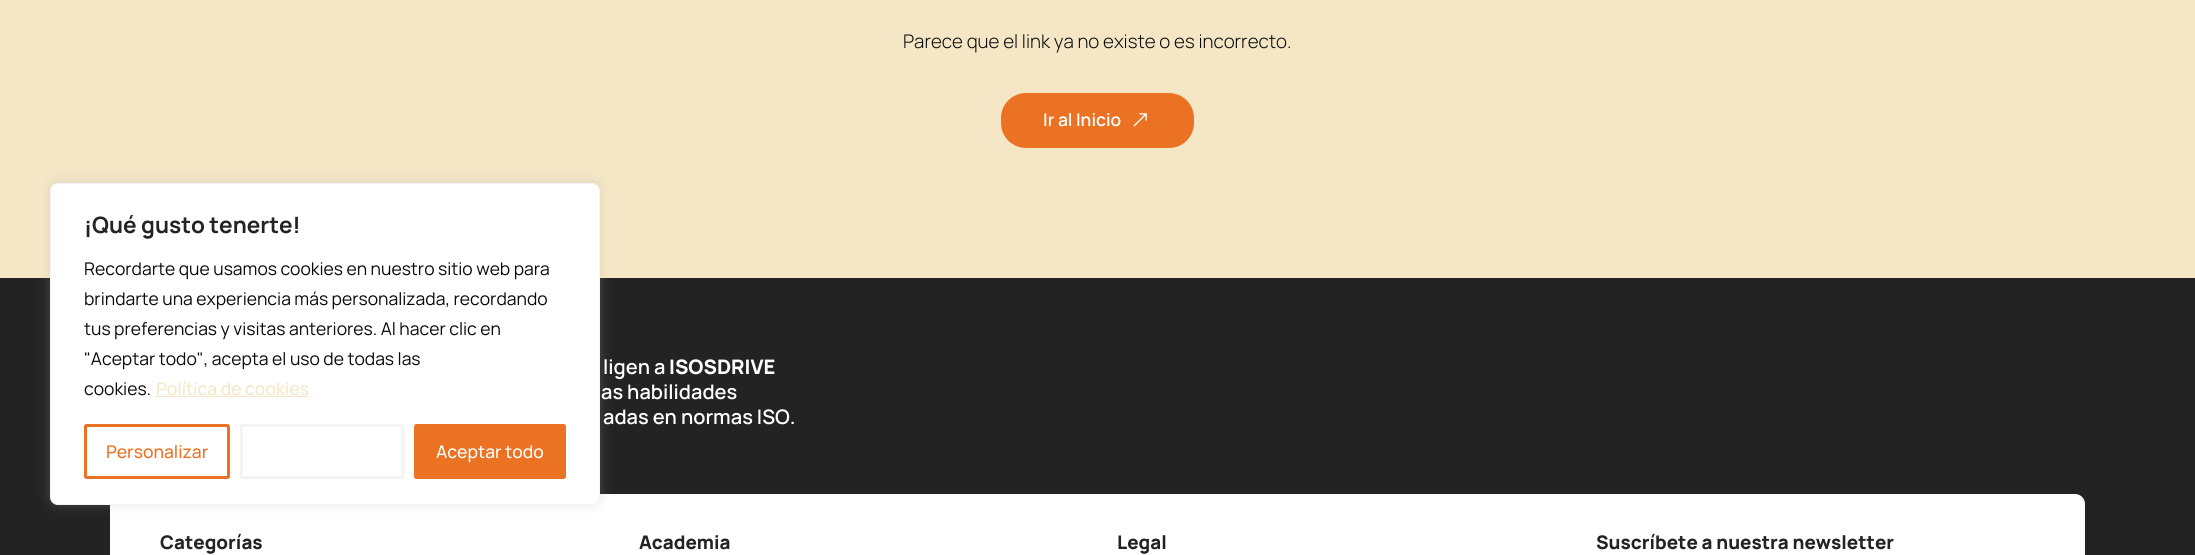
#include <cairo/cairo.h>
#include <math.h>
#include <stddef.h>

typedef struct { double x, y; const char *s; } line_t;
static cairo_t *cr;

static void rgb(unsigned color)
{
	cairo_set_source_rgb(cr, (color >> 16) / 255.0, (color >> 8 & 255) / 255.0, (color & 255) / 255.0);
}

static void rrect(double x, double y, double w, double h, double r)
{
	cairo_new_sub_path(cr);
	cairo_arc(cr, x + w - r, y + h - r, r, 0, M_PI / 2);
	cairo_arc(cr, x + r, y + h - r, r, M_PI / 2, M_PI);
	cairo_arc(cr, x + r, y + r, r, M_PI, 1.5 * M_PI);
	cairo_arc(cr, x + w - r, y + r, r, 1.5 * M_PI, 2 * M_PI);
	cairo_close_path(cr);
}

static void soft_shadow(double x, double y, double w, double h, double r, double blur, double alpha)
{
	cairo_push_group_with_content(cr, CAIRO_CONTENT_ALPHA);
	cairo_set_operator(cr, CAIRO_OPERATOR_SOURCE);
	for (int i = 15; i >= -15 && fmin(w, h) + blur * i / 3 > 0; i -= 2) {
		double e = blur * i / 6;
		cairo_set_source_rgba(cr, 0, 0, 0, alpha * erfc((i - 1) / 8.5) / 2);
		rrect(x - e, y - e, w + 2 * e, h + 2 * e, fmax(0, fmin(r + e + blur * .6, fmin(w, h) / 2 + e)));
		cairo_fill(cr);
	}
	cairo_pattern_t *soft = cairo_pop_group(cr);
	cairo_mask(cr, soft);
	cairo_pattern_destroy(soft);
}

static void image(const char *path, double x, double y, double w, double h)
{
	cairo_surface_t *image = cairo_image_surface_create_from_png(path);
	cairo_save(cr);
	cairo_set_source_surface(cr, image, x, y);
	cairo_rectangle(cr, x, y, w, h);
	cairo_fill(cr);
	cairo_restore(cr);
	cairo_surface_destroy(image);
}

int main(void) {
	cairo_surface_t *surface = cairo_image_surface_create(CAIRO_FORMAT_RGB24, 2195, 555);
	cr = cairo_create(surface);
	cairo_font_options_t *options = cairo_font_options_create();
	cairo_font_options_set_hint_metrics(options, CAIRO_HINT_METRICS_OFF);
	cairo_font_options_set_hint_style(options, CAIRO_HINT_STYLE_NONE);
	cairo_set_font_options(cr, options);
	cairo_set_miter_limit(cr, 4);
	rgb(0xf5e7c6);
	cairo_paint(cr);
	rgb(0xeb7223);
	rrect(1001, 93, 193, 55, 25);
	cairo_fill(cr);
	image("img/1.png", 1133, 113, 14, 14);
	rgb(0x232323);
	cairo_rectangle(cr, 0, 278, 2195, 277);
	cairo_fill(cr);
	rgb(0xffffff);
	rrect(110, 494, 1975, 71, 10);
	cairo_fill(cr);
	rgb(0xacabab);
	soft_shadow(50, 181, 550, 323, 8, 6, 0.3);
	rgb(0xffffff);
	rrect(50.5, 183.5, 549, 321, 7.5);
	cairo_fill_preserve(cr);
	rgb(0xf4f4f4);
	cairo_set_line_width(cr, 1);
	cairo_stroke(cr);
	rgb(0xf5e7c6);
	cairo_rectangle(cr, 155, 396, 154, 1);
	cairo_fill(cr);
	rrect(85.5, 425.5, 143, 52, 1);
	rgb(0xeb7223);
	cairo_set_line_width(cr, 3);
	cairo_stroke(cr);
	rrect(241.5, 425.5, 161, 52, 1);
	rgb(0xf4f4f4);
	cairo_stroke(cr);
	rgb(0xeb7223);
	rrect(415.5, 425.5, 149, 52, 1);
	cairo_fill_preserve(cr);
	cairo_stroke(cr);
	cairo_select_font_face(cr, "Manrope Light", CAIRO_FONT_SLANT_NORMAL, CAIRO_FONT_WEIGHT_NORMAL);
	cairo_set_font_size(cr, 18.75);
	rgb(0x0a0a0a);
	cairo_move_to(cr, 903, 48);
	cairo_show_text(cr, "Parece que el link ya no existe o es incorrecto.");
	cairo_select_font_face(cr, "Manrope SemiBold", CAIRO_FONT_SLANT_NORMAL, CAIRO_FONT_WEIGHT_NORMAL);
	cairo_set_font_size(cr, 17.5);
	rgb(0xffffff);
	cairo_move_to(cr, 1043, 126);
	cairo_show_text(cr, "Ir al Inicio");
	cairo_select_font_face(cr, "Manrope", CAIRO_FONT_SLANT_NORMAL, CAIRO_FONT_WEIGHT_BOLD);
	cairo_set_font_size(cr, 22.5);
	rgb(0x232323);
	cairo_move_to(cr, 84, 233);
	cairo_show_text(cr, "¡Qué gusto tenerte!");
	cairo_select_font_face(cr, "Manrope", CAIRO_FONT_SLANT_NORMAL, CAIRO_FONT_WEIGHT_NORMAL);
	cairo_set_font_size(cr, 17.5);
	rgb(0x0a0a0a);
	{
		static const line_t items[] = {
			{84, 275, "Recordarte que usamos cookies en nuestro sitio web para"},
			{84, 305, "brindarte una experiencia más personalizada, recordando"},
			{84, 335, "tus preferencias y visitas anteriores. Al hacer clic en"},
			{84, 365, "\"Aceptar todo\", acepta el uso de todas las"},
			{84, 395, "cookies."},
		};
		for (size_t i = 0; i < sizeof items / sizeof *items; i++) {
			cairo_move_to(cr, items[i].x, items[i].y);
			cairo_show_text(cr, items[i].s);
		}
	}
	cairo_select_font_face(cr, "Manrope Medium", CAIRO_FONT_SLANT_NORMAL, CAIRO_FONT_WEIGHT_NORMAL);
	rgb(0xf5e7c6);
	cairo_move_to(cr, 156, 395);
	cairo_show_text(cr, "Política de cookies");
	rgb(0xeb7223);
	cairo_move_to(cr, 106, 458);
	cairo_show_text(cr, "Personalizar");
	rgb(0xffffff);
	cairo_move_to(cr, 436, 458);
	cairo_show_text(cr, "Aceptar todo");
	cairo_select_font_face(cr, "Manrope SemiBold", CAIRO_FONT_SLANT_NORMAL, CAIRO_FONT_WEIGHT_NORMAL);
	cairo_set_font_size(cr, 20);
	cairo_move_to(cr, 603, 374);
	cairo_show_text(cr, "ligen a");
	cairo_select_font_face(cr, "Manrope ExtraBold", CAIRO_FONT_SLANT_NORMAL, CAIRO_FONT_WEIGHT_NORMAL);
	cairo_move_to(cr, 669, 374);
	cairo_show_text(cr, "ISOSDRIVE");
	cairo_select_font_face(cr, "Manrope SemiBold", CAIRO_FONT_SLANT_NORMAL, CAIRO_FONT_WEIGHT_NORMAL);
	cairo_move_to(cr, 601, 399);
	cairo_show_text(cr, "as habilidades");
	cairo_move_to(cr, 603, 424);
	cairo_show_text(cr, "adas en normas ISO.");
	cairo_select_font_face(cr, "Manrope ExtraBold", CAIRO_FONT_SLANT_NORMAL, CAIRO_FONT_WEIGHT_NORMAL);
	cairo_set_font_size(cr, 18.75);
	rgb(0x232323);
	{
		static const line_t items[] = {
			{160, 549, "Categorías"},
			{639, 549, "Academia"},
			{1117, 549, "Legal"},
			{1596, 549, "Suscríbete a nuestra newsletter"},
		};
		for (size_t i = 0; i < sizeof items / sizeof *items; i++) {
			cairo_move_to(cr, items[i].x, items[i].y);
			cairo_show_text(cr, items[i].s);
		}
	}
	cairo_surface_write_to_png(surface, "page.png");
	cairo_font_options_destroy(options);
	cairo_destroy(cr);
	cairo_surface_destroy(surface);
	return 0;
}
